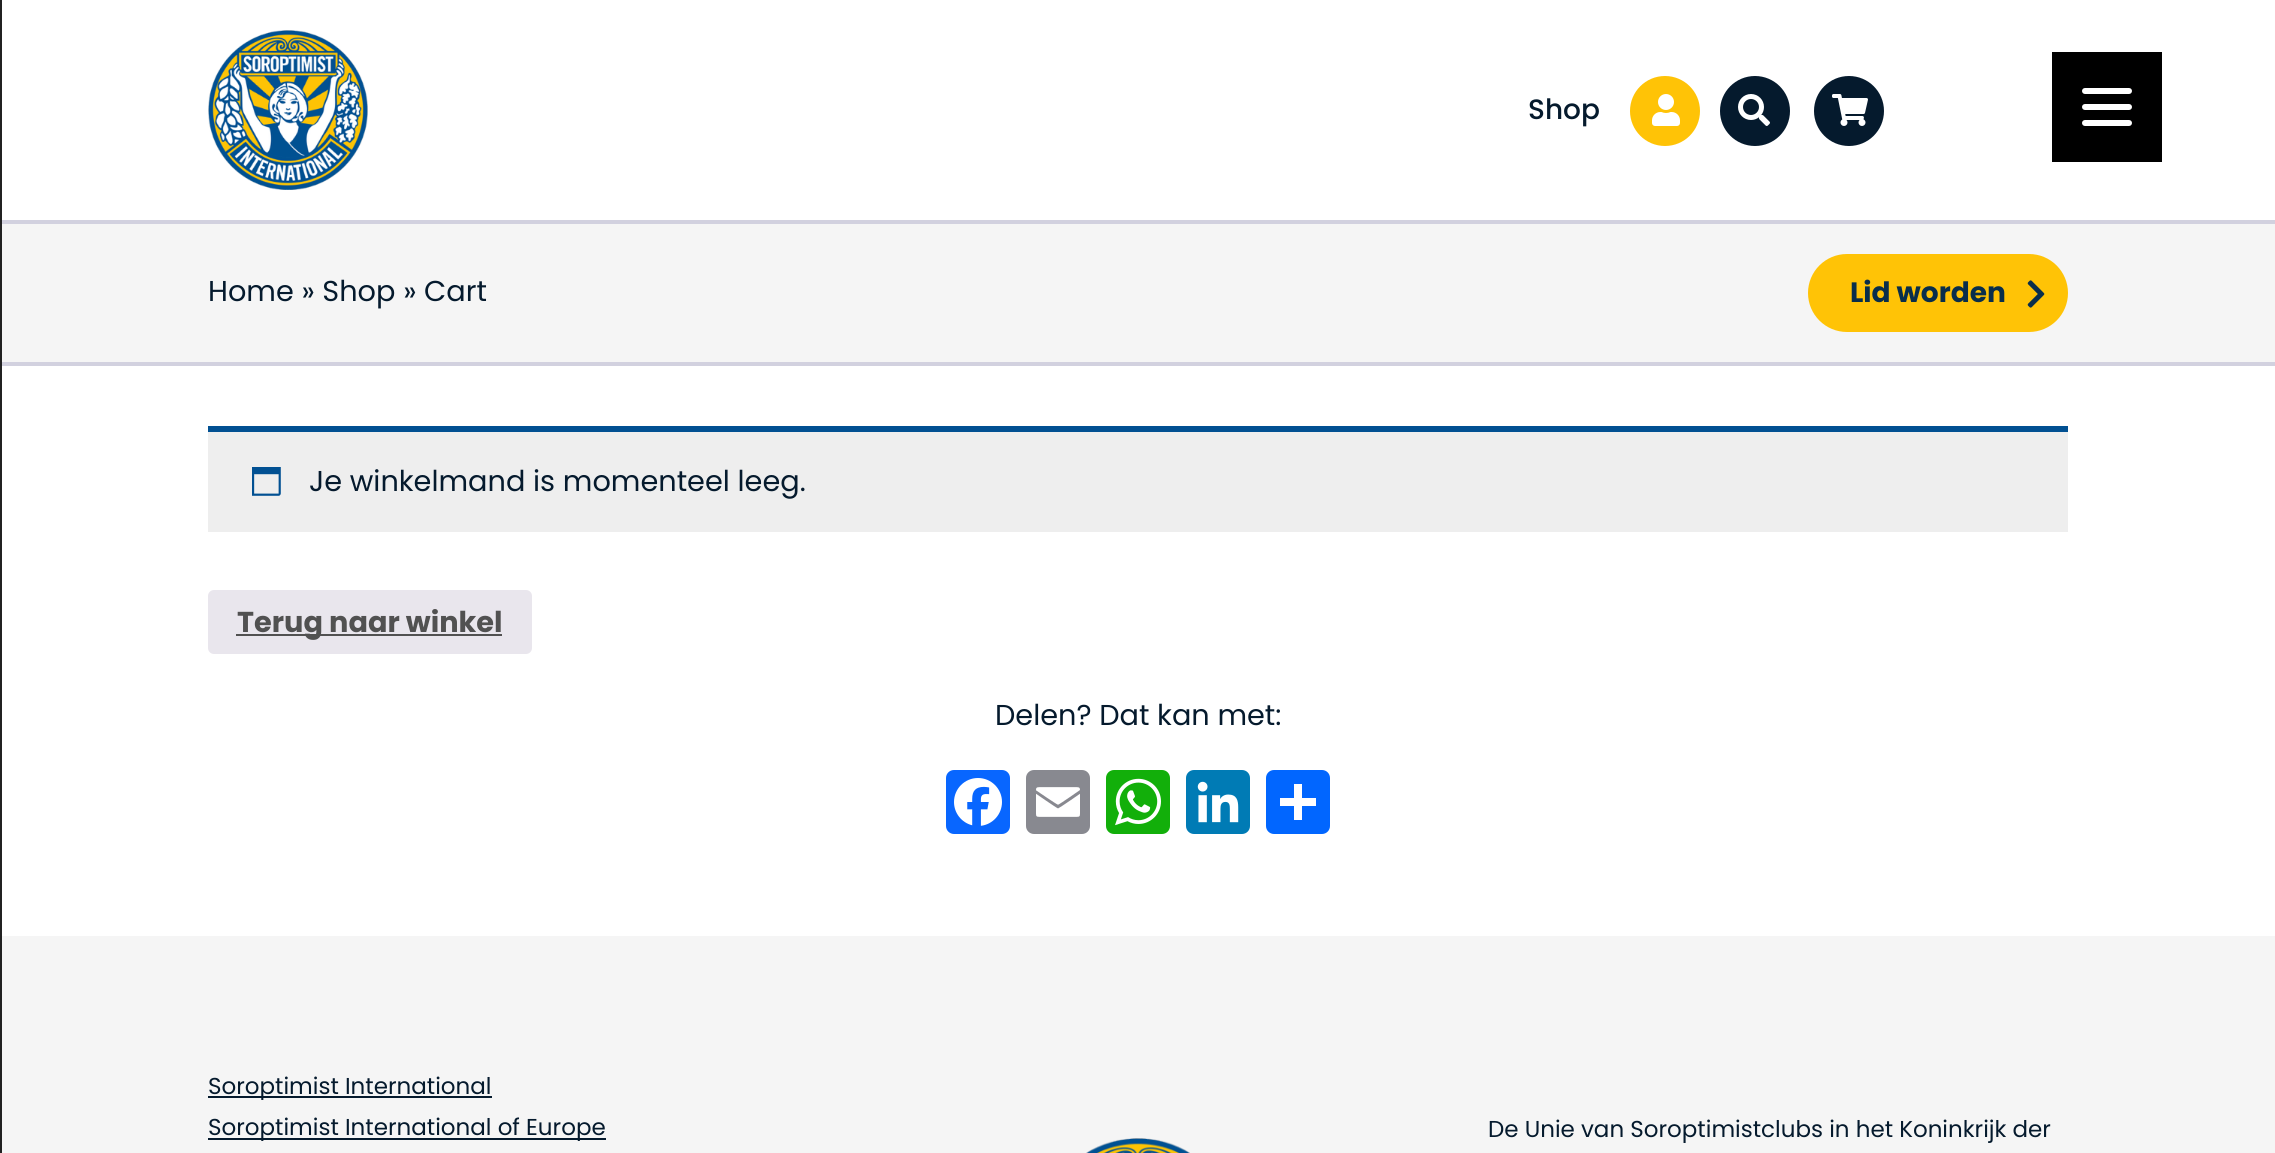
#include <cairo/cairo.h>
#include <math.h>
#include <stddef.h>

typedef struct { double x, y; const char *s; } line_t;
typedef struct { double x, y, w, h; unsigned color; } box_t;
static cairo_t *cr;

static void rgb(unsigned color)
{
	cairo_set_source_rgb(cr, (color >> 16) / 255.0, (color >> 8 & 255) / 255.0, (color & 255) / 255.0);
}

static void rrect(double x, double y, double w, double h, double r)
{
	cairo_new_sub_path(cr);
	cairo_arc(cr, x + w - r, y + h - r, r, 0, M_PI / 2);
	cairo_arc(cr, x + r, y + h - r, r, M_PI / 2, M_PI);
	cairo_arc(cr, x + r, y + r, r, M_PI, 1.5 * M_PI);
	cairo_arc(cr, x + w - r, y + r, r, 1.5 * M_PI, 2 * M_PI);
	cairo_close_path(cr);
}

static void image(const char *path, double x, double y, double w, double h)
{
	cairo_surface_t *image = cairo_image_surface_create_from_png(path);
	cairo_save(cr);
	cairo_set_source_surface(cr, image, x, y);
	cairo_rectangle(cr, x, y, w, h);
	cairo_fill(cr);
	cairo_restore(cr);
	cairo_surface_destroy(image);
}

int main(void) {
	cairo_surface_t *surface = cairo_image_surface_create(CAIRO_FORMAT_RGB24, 2275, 1153);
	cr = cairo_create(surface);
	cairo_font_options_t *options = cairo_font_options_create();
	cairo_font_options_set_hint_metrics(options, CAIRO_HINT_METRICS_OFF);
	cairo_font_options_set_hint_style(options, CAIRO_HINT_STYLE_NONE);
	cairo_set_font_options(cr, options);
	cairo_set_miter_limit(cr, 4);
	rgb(0xffffff);
	cairo_paint(cr);
	{
		static const box_t items[] = {
			{0, 220, 2275, 4, 0xd2d1df},
			{0, 362, 2275, 4, 0xd2d1df},
			{0, 0, 2, 1153, 0x212121},
		};
		for (size_t i = 0; i < sizeof items / sizeof *items; i++) {
			rgb(items[i].color);
			cairo_rectangle(cr, items[i].x, items[i].y, items[i].w, items[i].h);
			cairo_fill(cr);
		}
	}
	image("img/1.png", 208, 30, 160, 160);
	rgb(0xffc306);
	cairo_arc(cr, 1665, 111, 35, 0, 2 * M_PI);
	cairo_fill(cr);
	image("img/2.png", 1652, 94, 28, 32);
	rgb(0x051a2d);
	cairo_arc(cr, 1755, 111, 35, 0, 2 * M_PI);
	cairo_fill(cr);
	image("img/3.png", 1738, 94, 32, 32);
	cairo_arc(cr, 1849, 111, 35, 0, 2 * M_PI);
	cairo_fill(cr);
	image("img/4.png", 1832, 94, 36, 32);
	rgb(0xf5f5f5);
	cairo_rectangle(cr, 2, 224, 2273, 138);
	cairo_fill(cr);
	rgb(0xffc306);
	rrect(1808, 254, 260, 78, 39);
	cairo_fill(cr);
	image("img/5.png", 2027, 280, 18, 28);
	rgb(0xeeeeee);
	cairo_rectangle(cr, 208, 432, 1860, 100);
	cairo_fill(cr);
	rgb(0x015092);
	cairo_rectangle(cr, 208, 426, 1860, 6);
	cairo_fill(cr);
	image("img/6.png", 252, 467, 29, 29);
	rgb(0xe9e6ed);
	rrect(208, 590, 324, 64, 6);
	cairo_fill(cr);
	rgb(0x515151);
	cairo_rectangle(cr, 236, 634, 266, 2);
	cairo_fill(cr);
	rgb(0x0866ff);
	rrect(946, 770, 64, 64, 8);
	cairo_fill(cr);
	image("img/7.png", 954, 778, 48, 48);
	rgb(0x888990);
	rrect(1026, 770, 64, 64, 8);
	cairo_fill(cr);
	image("img/8.png", 1036, 787, 44, 30);
	rgb(0x12af0a);
	rrect(1106, 770, 64, 64, 8);
	cairo_fill(cr);
	image("img/9.png", 1115, 778, 46, 48);
	rgb(0x007bb5);
	rrect(1186, 770, 64, 64, 8);
	cairo_fill(cr);
	image("img/10.png", 1197, 781, 42, 42);
	rgb(0x0166ff);
	rrect(1266, 770, 64, 64, 8);
	cairo_fill(cr);
	{
		static const box_t items[] = {
			{1294, 784, 8, 36, 0xffffff},
			{1280, 798, 36, 8, 0xffffff},
			{2, 936, 2273, 217, 0xf5f5f5},
			{208, 1096, 284, 2, 0x051a2d},
			{208, 1138, 398, 2, 0x051a2d},
		};
		for (size_t i = 0; i < sizeof items / sizeof *items; i++) {
			rgb(items[i].color);
			cairo_rectangle(cr, items[i].x, items[i].y, items[i].w, items[i].h);
			cairo_fill(cr);
		}
	}
	image("img/11.png", 1086, 1138, 104, 15);
	rgb(0x000000);
	cairo_rectangle(cr, 2052, 52, 110, 110);
	cairo_fill(cr);
	rgb(0xffffff);
	rrect(2082, 104, 50, 6, 3);
	cairo_fill(cr);
	rrect(2082, 88, 50, 6, 3);
	cairo_fill(cr);
	rrect(2082, 120, 50, 6, 3);
	cairo_fill(cr);
	cairo_select_font_face(cr, "Poppins Medium", CAIRO_FONT_SLANT_NORMAL, CAIRO_FONT_WEIGHT_NORMAL);
	cairo_set_font_size(cr, 28);
	rgb(0x051a2d);
	cairo_move_to(cr, 1528, 119);
	cairo_show_text(cr, "Shop");
	cairo_select_font_face(cr, "Poppins", CAIRO_FONT_SLANT_NORMAL, CAIRO_FONT_WEIGHT_NORMAL);
	cairo_set_font_size(cr, 28.75);
	cairo_move_to(cr, 208, 301);
	cairo_show_text(cr, "Home » Shop » Cart");
	cairo_select_font_face(cr, "Poppins", CAIRO_FONT_SLANT_NORMAL, CAIRO_FONT_WEIGHT_BOLD);
	cairo_set_font_size(cr, 28);
	rgb(0x092e4b);
	cairo_move_to(cr, 1850, 302);
	cairo_show_text(cr, "Lid worden");
	cairo_select_font_face(cr, "Poppins", CAIRO_FONT_SLANT_NORMAL, CAIRO_FONT_WEIGHT_NORMAL);
	cairo_set_font_size(cr, 28.75);
	rgb(0x051a2d);
	cairo_move_to(cr, 309, 491);
	cairo_show_text(cr, "Je winkelmand is momenteel leeg.");
	cairo_select_font_face(cr, "Poppins", CAIRO_FONT_SLANT_NORMAL, CAIRO_FONT_WEIGHT_BOLD);
	rgb(0x515151);
	cairo_move_to(cr, 237, 632);
	cairo_show_text(cr, "Terug naar winkel");
	cairo_select_font_face(cr, "Poppins", CAIRO_FONT_SLANT_NORMAL, CAIRO_FONT_WEIGHT_NORMAL);
	rgb(0x051a2d);
	cairo_move_to(cr, 995, 725);
	cairo_show_text(cr, "Delen? Dat kan met:");
	cairo_set_font_size(cr, 23);
	{
		static const line_t items[] = {
			{208, 1094, "Soroptimist International"},
			{208, 1135, "Soroptimist International of Europe"},
			{1488, 1137, "De Unie van Soroptimistclubs in het Koninkrijk der"},
		};
		for (size_t i = 0; i < sizeof items / sizeof *items; i++) {
			cairo_move_to(cr, items[i].x, items[i].y);
			cairo_show_text(cr, items[i].s);
		}
	}
	cairo_surface_write_to_png(surface, "page.png");
	cairo_font_options_destroy(options);
	cairo_destroy(cr);
	cairo_surface_destroy(surface);
	return 0;
}
